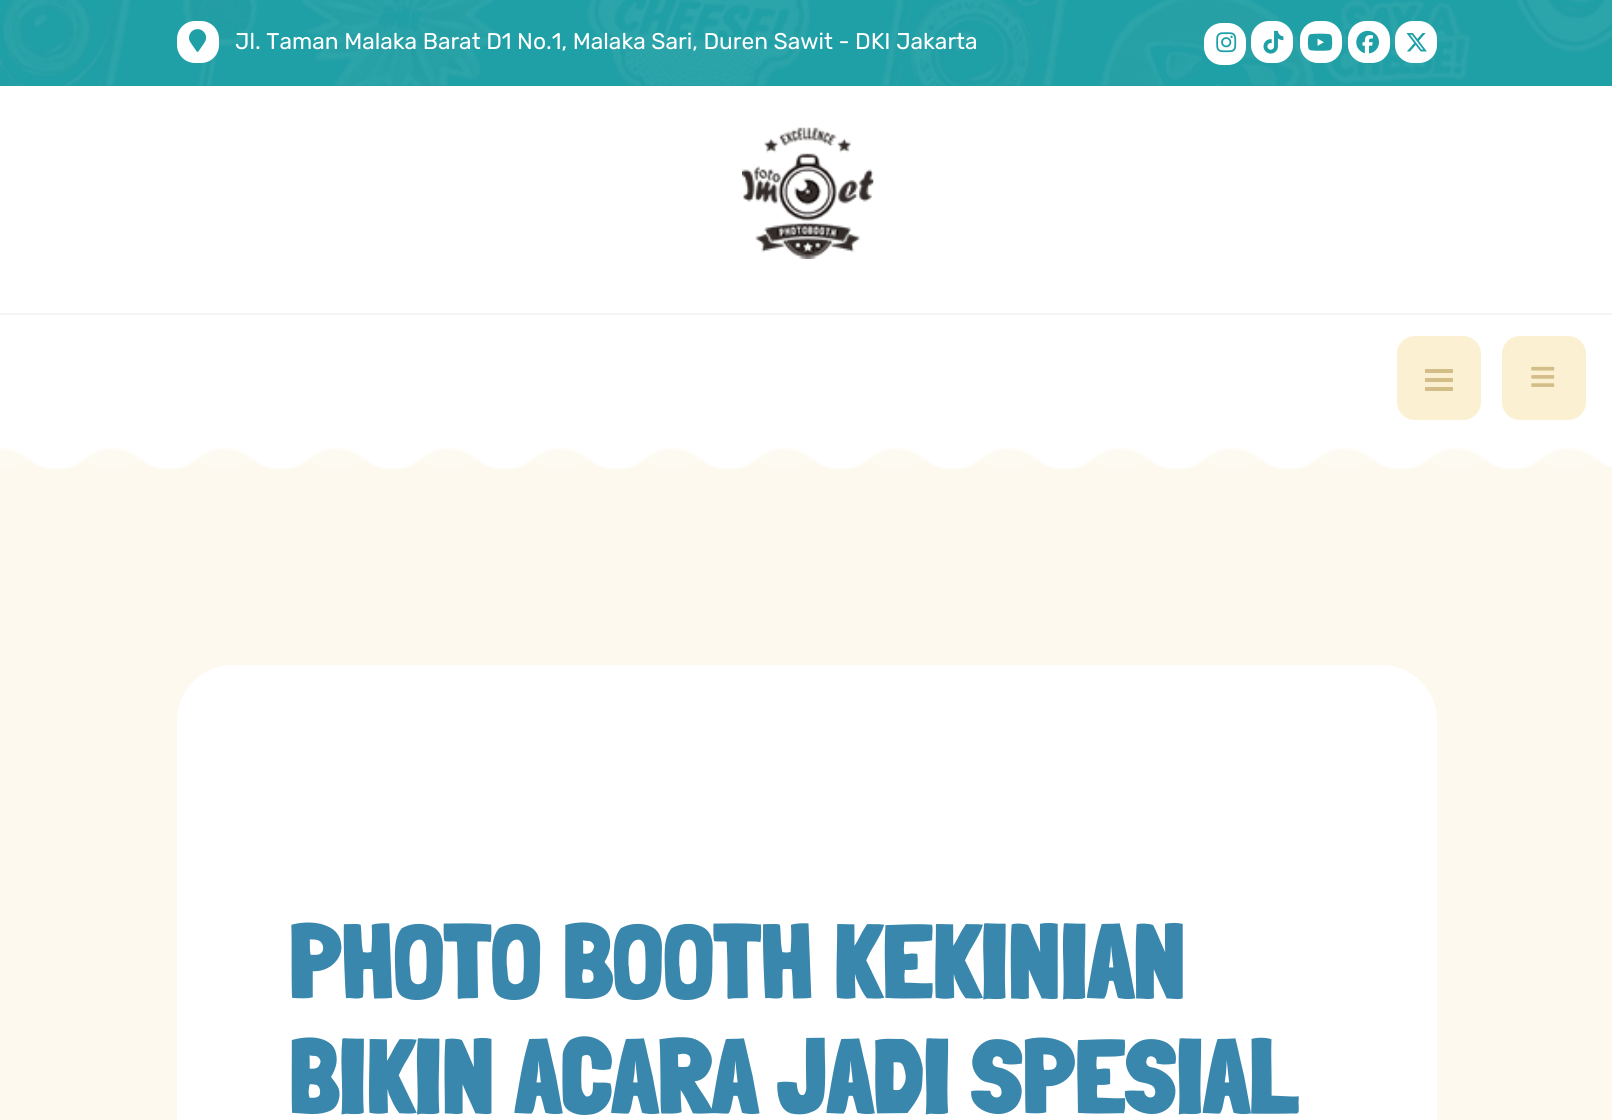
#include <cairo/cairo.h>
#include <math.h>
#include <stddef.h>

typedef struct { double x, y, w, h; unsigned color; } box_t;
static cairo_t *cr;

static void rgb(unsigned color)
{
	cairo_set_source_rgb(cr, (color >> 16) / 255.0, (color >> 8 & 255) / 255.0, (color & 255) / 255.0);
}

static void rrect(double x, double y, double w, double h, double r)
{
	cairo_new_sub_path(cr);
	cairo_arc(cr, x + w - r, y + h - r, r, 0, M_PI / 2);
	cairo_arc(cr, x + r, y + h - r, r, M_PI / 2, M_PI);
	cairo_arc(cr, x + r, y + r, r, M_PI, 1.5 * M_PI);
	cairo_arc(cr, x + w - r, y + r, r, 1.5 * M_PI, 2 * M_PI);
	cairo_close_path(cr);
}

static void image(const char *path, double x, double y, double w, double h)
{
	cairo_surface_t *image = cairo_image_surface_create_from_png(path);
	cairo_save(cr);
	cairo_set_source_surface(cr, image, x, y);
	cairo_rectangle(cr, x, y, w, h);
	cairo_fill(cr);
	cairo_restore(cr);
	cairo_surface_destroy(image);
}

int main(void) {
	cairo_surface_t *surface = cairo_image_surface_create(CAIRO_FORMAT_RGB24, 1612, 1120);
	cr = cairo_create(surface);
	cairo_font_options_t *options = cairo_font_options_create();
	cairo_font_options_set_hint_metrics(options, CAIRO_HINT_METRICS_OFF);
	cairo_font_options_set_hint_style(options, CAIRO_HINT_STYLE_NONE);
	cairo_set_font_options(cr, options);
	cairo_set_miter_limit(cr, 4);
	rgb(0xfdf9ef);
	cairo_paint(cr);
	rgb(0x1fa0a6);
	cairo_rectangle(cr, 0, 0, 1612, 86);
	cairo_fill(cr);
	image("img/1.png", 0, 0, 1612, 86);
	rgb(0xffffff);
	rrect(177, 21, 42, 42, 18);
	cairo_fill(cr);
	image("img/2.png", 189, 29, 18, 23);
	rrect(1204, 23, 42, 42, 18);
	cairo_fill(cr);
	image("img/3.png", 1216, 32, 21, 21);
	rrect(1251, 21, 42, 42, 18);
	cairo_fill(cr);
	image("img/4.png", 1263, 30, 21, 24);
	rrect(1300, 21, 42, 42, 18);
	cairo_fill(cr);
	image("img/5.png", 1307, 33, 26, 18);
	rrect(1348, 21, 42, 42, 18);
	cairo_fill(cr);
	image("img/6.png", 1356, 30, 23, 24);
	rrect(1395, 21, 42, 42, 18);
	cairo_fill(cr);
	image("img/7.png", 1406, 33, 21, 19);
	cairo_rectangle(cr, 0, 86, 1612, 227);
	cairo_fill(cr);
	image("img/8.png", 742, 127, 132, 132);
	cairo_rectangle(cr, 0, 315, 1612, 126);
	cairo_fill(cr);
	rgb(0xf4f4f4);
	cairo_rectangle(cr, 0, 313, 1612, 2);
	cairo_fill(cr);
	rgb(0xfbf0d1);
	rrect(1397, 336, 84, 84, 18);
	cairo_fill(cr);
	{
		static const box_t items[] = {
			{1425, 369, 28, 4, 0xd3bd88},
			{1425, 378, 28, 4, 0xd3bd88},
			{1425, 387, 28, 4, 0xd3bd88},
		};
		for (size_t i = 0; i < sizeof items / sizeof *items; i++) {
			rgb(items[i].color);
			cairo_rectangle(cr, items[i].x, items[i].y, items[i].w, items[i].h);
			cairo_fill(cr);
		}
	}
	rgb(0xfbf0d1);
	rrect(1502, 336, 84, 84, 18);
	cairo_fill(cr);
	image("img/9.png", 1531, 366, 24, 21);
	image("img/10.png", 0, 441, 1612, 28);
	rgb(0xffffff);
	rrect(177, 665, 1260, 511, 56);
	cairo_fill(cr);
	cairo_select_font_face(cr, "Rubik", CAIRO_FONT_SLANT_NORMAL, CAIRO_FONT_WEIGHT_NORMAL);
	cairo_set_font_size(cr, 22.75);
	cairo_move_to(cr, 235, 49);
	cairo_show_text(cr, "Jl. Taman Malaka Barat D1 No.1, Malaka Sari, Duren Sawit - DKI Jakarta");
	cairo_select_font_face(cr, "Londrina Solid Black", CAIRO_FONT_SLANT_NORMAL, CAIRO_FONT_WEIGHT_NORMAL);
	cairo_set_font_size(cr, 105);
	rgb(0x3a87ad);
	cairo_move_to(cr, 289, 998);
	cairo_show_text(cr, "PHOTO BOOTH KEKINIAN");
	cairo_move_to(cr, 289, 1113);
	cairo_show_text(cr, "BIKIN ACARA JADI SPESIAL");
	cairo_surface_write_to_png(surface, "page.png");
	cairo_font_options_destroy(options);
	cairo_destroy(cr);
	cairo_surface_destroy(surface);
	return 0;
}
